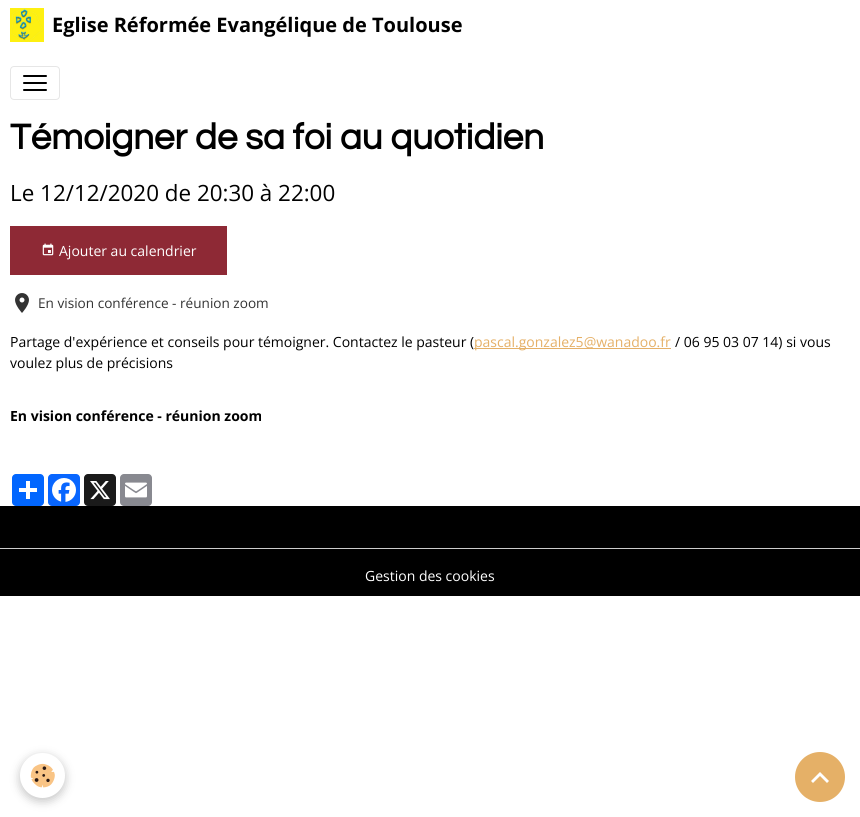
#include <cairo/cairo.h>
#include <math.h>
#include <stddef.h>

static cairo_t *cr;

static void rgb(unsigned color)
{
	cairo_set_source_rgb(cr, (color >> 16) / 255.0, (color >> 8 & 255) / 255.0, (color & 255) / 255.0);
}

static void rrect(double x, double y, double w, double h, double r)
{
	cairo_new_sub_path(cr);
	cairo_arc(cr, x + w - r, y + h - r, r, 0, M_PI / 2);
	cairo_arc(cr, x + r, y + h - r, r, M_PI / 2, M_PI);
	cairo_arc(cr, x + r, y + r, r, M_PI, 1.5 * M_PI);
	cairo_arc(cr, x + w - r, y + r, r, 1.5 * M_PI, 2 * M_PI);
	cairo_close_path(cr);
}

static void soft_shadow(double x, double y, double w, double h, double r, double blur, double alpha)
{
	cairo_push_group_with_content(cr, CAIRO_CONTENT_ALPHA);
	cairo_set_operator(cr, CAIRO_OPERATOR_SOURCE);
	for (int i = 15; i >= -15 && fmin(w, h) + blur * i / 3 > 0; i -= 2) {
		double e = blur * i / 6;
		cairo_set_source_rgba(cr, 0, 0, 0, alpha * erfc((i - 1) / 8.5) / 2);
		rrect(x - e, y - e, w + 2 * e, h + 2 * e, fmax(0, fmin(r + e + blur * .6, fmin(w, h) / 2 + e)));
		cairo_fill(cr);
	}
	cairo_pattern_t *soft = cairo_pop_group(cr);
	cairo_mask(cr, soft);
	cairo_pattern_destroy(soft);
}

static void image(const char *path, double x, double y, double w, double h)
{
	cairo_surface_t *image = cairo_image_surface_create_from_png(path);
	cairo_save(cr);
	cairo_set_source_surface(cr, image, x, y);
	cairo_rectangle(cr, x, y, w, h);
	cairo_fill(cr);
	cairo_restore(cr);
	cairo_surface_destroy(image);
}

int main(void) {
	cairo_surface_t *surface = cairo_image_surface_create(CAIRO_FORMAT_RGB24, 860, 817);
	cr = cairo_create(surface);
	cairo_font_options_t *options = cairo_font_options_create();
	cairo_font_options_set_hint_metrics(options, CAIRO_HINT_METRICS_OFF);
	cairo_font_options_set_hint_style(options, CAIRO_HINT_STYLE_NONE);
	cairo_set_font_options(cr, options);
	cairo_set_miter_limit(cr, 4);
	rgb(0xffffff);
	cairo_paint(cr);
	image("img/1.png", 10, 8, 34, 34);
	rrect(10.5, 66.5, 49, 33, 3.5);
	rgb(0xe6e6e6);
	cairo_set_line_width(cr, 1);
	cairo_stroke(cr);
	rgb(0x000000);
	rrect(23, 75, 24, 2, 1);
	cairo_fill(cr);
	rrect(23, 82, 24, 2, 1);
	cairo_fill(cr);
	rrect(23, 89, 24, 2, 1);
	cairo_fill(cr);
	rgb(0x8e2935);
	cairo_rectangle(cr, 10, 226, 217, 49);
	cairo_fill(cr);
	image("img/2.png", 42, 243, 12, 13);
	image("img/3.png", 15, 293, 14, 20);
	rgb(0xe5b067);
	cairo_rectangle(cr, 474, 348, 197, 1);
	cairo_fill(cr);
	rgb(0x0166ff);
	rrect(12, 474, 32, 32, 4);
	cairo_fill(cr);
	rgb(0xffffff);
	cairo_rectangle(cr, 26, 481, 4, 18);
	cairo_fill(cr);
	cairo_rectangle(cr, 19, 488, 18, 4);
	cairo_fill(cr);
	rgb(0x0866ff);
	rrect(48, 474, 32, 32, 4);
	cairo_fill(cr);
	image("img/4.png", 52, 478, 24, 24);
	rgb(0x1a1a1a);
	rrect(84, 474, 32, 32, 4);
	cairo_fill(cr);
	image("img/5.png", 90, 481, 20, 19);
	rgb(0x888990);
	rrect(120, 474, 32, 32, 4);
	cairo_fill(cr);
	image("img/6.png", 125, 482, 22, 16);
	rgb(0x000000);
	cairo_rectangle(cr, 0, 506, 860, 90);
	cairo_fill(cr);
	rgb(0xcccccc);
	cairo_rectangle(cr, 0, 548, 860, 1);
	cairo_fill(cr);
	rgb(0x000000);
	soft_shadow(20, 756, 45, 45, 22.5, 5, 0.24);
	rgb(0xffffff);
	cairo_arc(cr, 42.5, 775.5, 22.5, 0, 2 * M_PI);
	cairo_fill(cr);
	image("img/7.png", 30, 763, 25, 25);
	rgb(0xe5b067);
	cairo_arc(cr, 820, 777, 25, 0, 2 * M_PI);
	cairo_fill(cr);
	rgb(0xffffff);
	cairo_new_path(cr);
	cairo_move_to(cr, 820, 772);
	cairo_line_to(cr, 829, 781);
	cairo_line_to(cr, 827, 783);
	cairo_line_to(cr, 820, 776);
	cairo_line_to(cr, 813, 783);
	cairo_line_to(cr, 811, 781);
	cairo_close_path(cr);
	cairo_fill(cr);
	cairo_select_font_face(cr, "Open Sans", CAIRO_FONT_SLANT_NORMAL, CAIRO_FONT_WEIGHT_BOLD);
	cairo_set_font_size(cr, 20);
	rgb(0x000000);
	cairo_move_to(cr, 52, 32);
	cairo_show_text(cr, "Eglise Réformée Evangélique de Toulouse");
	cairo_select_font_face(cr, "Questrial", CAIRO_FONT_SLANT_NORMAL, CAIRO_FONT_WEIGHT_BOLD);
	cairo_set_font_size(cr, 36.75);
	cairo_move_to(cr, 10, 149);
	cairo_show_text(cr, "Témoigner de sa foi au quotidien");
	cairo_select_font_face(cr, "Open Sans", CAIRO_FONT_SLANT_NORMAL, CAIRO_FONT_WEIGHT_NORMAL);
	cairo_set_font_size(cr, 22.4);
	cairo_move_to(cr, 10, 201);
	cairo_show_text(cr, "Le 12/12/2020 de 20:30 à 22:00");
	cairo_set_font_size(cr, 14);
	rgb(0xffffff);
	cairo_move_to(cr, 59, 256);
	cairo_show_text(cr, "Ajouter au calendrier");
	cairo_set_font_size(cr, 13.6);
	rgb(0x333333);
	cairo_move_to(cr, 38, 308);
	cairo_show_text(cr, "En vision conférence - réunion zoom");
	cairo_set_font_size(cr, 14);
	rgb(0x000000);
	cairo_move_to(cr, 10, 347);
	cairo_show_text(cr, "Partage d'expérience et conseils pour témoigner. Contactez le pasteur (");
	rgb(0xe5b067);
	cairo_move_to(cr, 474, 347);
	cairo_show_text(cr, "pascal.gonzalez5@wanadoo.fr");
	rgb(0x000000);
	cairo_move_to(cr, 675, 347);
	cairo_show_text(cr, "/ 06 95 03 07 14) si vous");
	cairo_move_to(cr, 10, 368);
	cairo_show_text(cr, "voulez plus de précisions");
	cairo_select_font_face(cr, "Open Sans", CAIRO_FONT_SLANT_NORMAL, CAIRO_FONT_WEIGHT_BOLD);
	cairo_move_to(cr, 10, 421);
	cairo_show_text(cr, "En vision conférence - réunion zoom");
	cairo_select_font_face(cr, "Open Sans", CAIRO_FONT_SLANT_NORMAL, CAIRO_FONT_WEIGHT_NORMAL);
	rgb(0xffffff);
	cairo_move_to(cr, 365, 581);
	cairo_show_text(cr, "Gestion des cookies");
	cairo_surface_write_to_png(surface, "page.png");
	cairo_font_options_destroy(options);
	cairo_destroy(cr);
	cairo_surface_destroy(surface);
	return 0;
}
